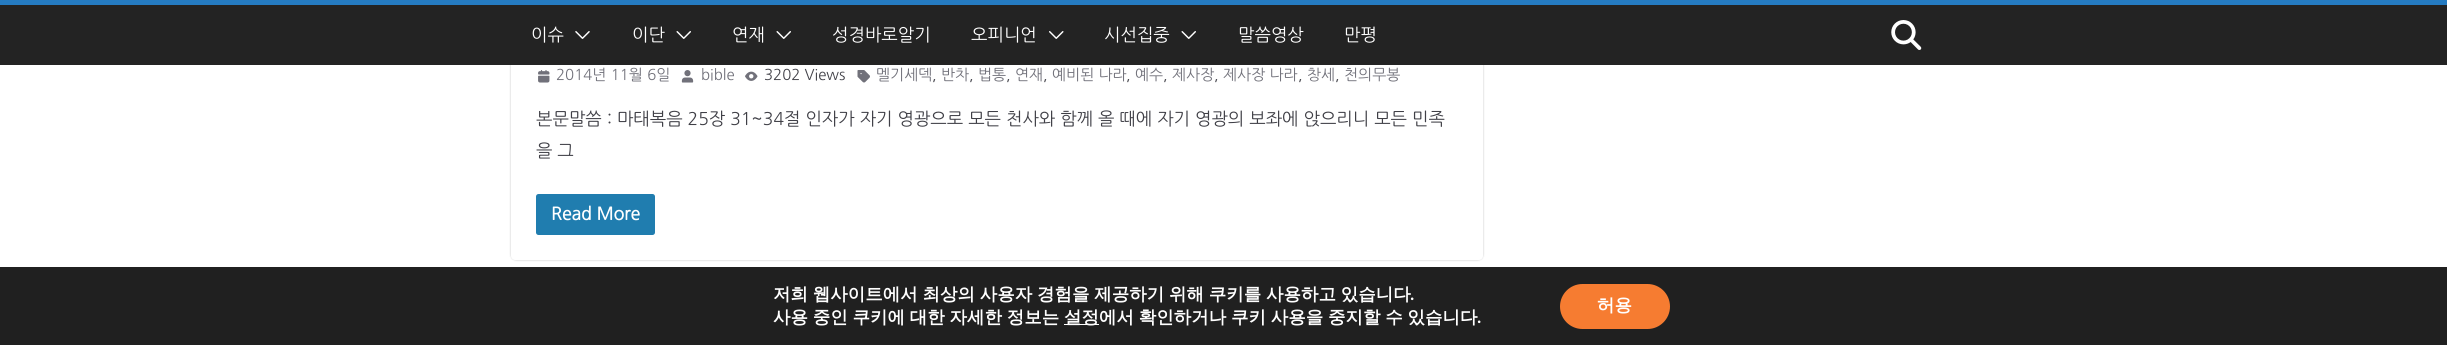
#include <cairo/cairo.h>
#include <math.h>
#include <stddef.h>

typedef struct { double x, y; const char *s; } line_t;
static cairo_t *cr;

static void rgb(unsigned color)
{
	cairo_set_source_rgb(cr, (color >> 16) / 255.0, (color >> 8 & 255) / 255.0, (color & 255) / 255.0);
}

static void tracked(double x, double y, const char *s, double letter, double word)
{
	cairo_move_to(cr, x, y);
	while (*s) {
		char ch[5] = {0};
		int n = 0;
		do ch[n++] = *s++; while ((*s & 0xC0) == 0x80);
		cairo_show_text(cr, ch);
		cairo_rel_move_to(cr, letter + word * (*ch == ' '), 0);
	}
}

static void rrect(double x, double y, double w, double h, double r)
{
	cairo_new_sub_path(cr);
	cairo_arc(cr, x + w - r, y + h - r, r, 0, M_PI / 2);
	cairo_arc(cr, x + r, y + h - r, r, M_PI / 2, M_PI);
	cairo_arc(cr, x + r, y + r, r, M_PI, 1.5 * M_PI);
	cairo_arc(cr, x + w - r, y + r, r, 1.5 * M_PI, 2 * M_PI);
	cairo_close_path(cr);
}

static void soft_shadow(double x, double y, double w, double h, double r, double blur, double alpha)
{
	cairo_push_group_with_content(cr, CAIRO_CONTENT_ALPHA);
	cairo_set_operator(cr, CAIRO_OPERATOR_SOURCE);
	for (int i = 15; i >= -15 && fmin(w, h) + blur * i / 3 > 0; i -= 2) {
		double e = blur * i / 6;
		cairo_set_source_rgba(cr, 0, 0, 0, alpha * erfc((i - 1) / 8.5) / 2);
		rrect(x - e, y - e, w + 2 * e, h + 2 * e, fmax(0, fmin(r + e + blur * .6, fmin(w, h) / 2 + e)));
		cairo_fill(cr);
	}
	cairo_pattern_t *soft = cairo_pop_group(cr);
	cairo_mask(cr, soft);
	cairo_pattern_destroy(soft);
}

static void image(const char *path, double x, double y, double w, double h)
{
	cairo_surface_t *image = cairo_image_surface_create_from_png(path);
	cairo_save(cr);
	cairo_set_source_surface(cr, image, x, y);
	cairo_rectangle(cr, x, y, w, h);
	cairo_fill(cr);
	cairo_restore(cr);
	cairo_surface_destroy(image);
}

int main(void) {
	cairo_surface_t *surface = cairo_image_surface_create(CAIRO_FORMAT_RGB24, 2447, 345);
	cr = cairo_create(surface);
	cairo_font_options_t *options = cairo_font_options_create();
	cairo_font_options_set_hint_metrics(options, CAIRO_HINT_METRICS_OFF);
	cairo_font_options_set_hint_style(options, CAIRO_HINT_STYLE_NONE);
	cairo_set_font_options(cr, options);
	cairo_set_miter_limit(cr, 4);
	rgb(0xffffff);
	cairo_paint(cr);
	cairo_save(cr);
	cairo_set_fill_rule(cr, CAIRO_FILL_RULE_EVEN_ODD);
	cairo_new_path(cr);
	cairo_move_to(cr, 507, 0);
	cairo_line_to(cr, 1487, 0);
	cairo_line_to(cr, 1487, 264);
	cairo_line_to(cr, 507, 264);
	cairo_close_path(cr);
	cairo_move_to(cr, 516, -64);
	cairo_line_to(cr, 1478, -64);
	cairo_curve_to(cr, 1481, -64, 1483, -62, 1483, -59);
	cairo_line_to(cr, 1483, 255);
	cairo_curve_to(cr, 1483, 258, 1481, 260, 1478, 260);
	cairo_line_to(cr, 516, 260);
	cairo_curve_to(cr, 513, 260, 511, 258, 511, 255);
	cairo_line_to(cr, 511, -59);
	cairo_curve_to(cr, 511, -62, 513, -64, 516, -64);
	cairo_close_path(cr);
	cairo_clip(cr);
	rgb(0x000000);
	soft_shadow(511, -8, 972, 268, 5, 1, 0.24);
	cairo_restore(cr);
	rgb(0x232323);
	cairo_rectangle(cr, 0, 5, 2447, 60);
	cairo_fill(cr);
	rgb(0x257bc1);
	cairo_rectangle(cr, 0, 0, 2447, 5);
	cairo_fill(cr);
	image("img/1.png", 575, 31, 15, 8);
	image("img/2.png", 676, 31, 15, 8);
	image("img/2.png", 776, 31, 15, 8);
	image("img/3.png", 1049, 31, 15, 8);
	image("img/2.png", 1181, 31, 15, 8);
	image("img/4.png", 1891, 20, 31, 30);
	image("img/5.png", 538, 70, 12, 13);
	image("img/6.png", 681, 70, 13, 13);
	image("img/7.png", 745, 71, 13, 10);
	image("img/8.png", 857, 70, 13, 13);
	rgb(0x207daf);
	rrect(536, 194, 119, 41, 2.5);
	cairo_fill(cr);
	rgb(0x202020);
	cairo_rectangle(cr, 0, 267, 2447, 78);
	cairo_fill(cr);
	rgb(0xffffff);
	cairo_rectangle(cr, 1064, 324, 35, 1);
	cairo_fill(cr);
	rgb(0xf67c31);
	rrect(1560, 284, 110, 45, 22.5);
	cairo_fill(cr);
	cairo_select_font_face(cr, "NanumGothic", CAIRO_FONT_SLANT_NORMAL, CAIRO_FONT_WEIGHT_NORMAL);
	cairo_set_font_size(cr, 17.5);
	rgb(0xffffff);
	{
		static const line_t items[] = {
			{531, 41, "이슈"},
			{632, 41, "이단"},
			{732, 41, "연재"},
			{832, 41, "성경바로알기"},
			{971, 41, "오피니언"},
			{1104, 41, "시선집중"},
			{1238, 41, "말씀영상"},
			{1344, 41, "만평"},
		};
		for (size_t i = 0; i < sizeof items / sizeof *items; i++) {
			cairo_move_to(cr, items[i].x, items[i].y);
			cairo_show_text(cr, items[i].s);
		}
	}
	cairo_set_font_size(cr, 15);
	rgb(0x71717a);
	cairo_move_to(cr, 556, 80);
	cairo_show_text(cr, "2014년 11월 6일");
	cairo_move_to(cr, 701, 80);
	cairo_show_text(cr, "bible");
	rgb(0x3f3f46);
	cairo_move_to(cr, 764, 80);
	cairo_show_text(cr, "3202 Views");
	rgb(0x71717a);
	cairo_move_to(cr, 876, 80);
	cairo_show_text(cr, "멜기세덱");
	rgb(0x3f3f46);
	cairo_move_to(cr, 932, 80);
	cairo_show_text(cr, ",");
	rgb(0x71717a);
	cairo_move_to(cr, 941, 80);
	cairo_show_text(cr, "반차");
	rgb(0x3f3f46);
	cairo_move_to(cr, 969, 80);
	cairo_show_text(cr, ",");
	rgb(0x71717a);
	cairo_move_to(cr, 978, 80);
	cairo_show_text(cr, "법통");
	rgb(0x3f3f46);
	cairo_move_to(cr, 1006, 80);
	cairo_show_text(cr, ",");
	rgb(0x71717a);
	cairo_move_to(cr, 1015, 80);
	cairo_show_text(cr, "연재");
	rgb(0x3f3f46);
	cairo_move_to(cr, 1043, 80);
	cairo_show_text(cr, ",");
	rgb(0x71717a);
	cairo_move_to(cr, 1052, 80);
	cairo_show_text(cr, "예비된 나라");
	rgb(0x3f3f46);
	cairo_move_to(cr, 1126, 80);
	cairo_show_text(cr, ",");
	rgb(0x71717a);
	cairo_move_to(cr, 1135, 80);
	cairo_show_text(cr, "예수");
	rgb(0x3f3f46);
	cairo_move_to(cr, 1163, 80);
	cairo_show_text(cr, ",");
	rgb(0x71717a);
	cairo_move_to(cr, 1172, 80);
	cairo_show_text(cr, "제사장");
	rgb(0x3f3f46);
	cairo_move_to(cr, 1214, 80);
	cairo_show_text(cr, ",");
	rgb(0x71717a);
	cairo_move_to(cr, 1223, 80);
	cairo_show_text(cr, "제사장 나라");
	rgb(0x3f3f46);
	cairo_move_to(cr, 1298, 80);
	cairo_show_text(cr, ",");
	rgb(0x71717a);
	cairo_move_to(cr, 1307, 80);
	cairo_show_text(cr, "창세");
	rgb(0x3f3f46);
	cairo_move_to(cr, 1335, 80);
	cairo_show_text(cr, ",");
	rgb(0x71717a);
	cairo_move_to(cr, 1344, 80);
	cairo_show_text(cr, "천의무봉");
	cairo_set_font_size(cr, 17.5);
	rgb(0x3f3f46);
	cairo_move_to(cr, 536, 125);
	cairo_show_text(cr, "본문말씀 : 마태복음 25장 31~34절 인자가 자기 영광으로 모든 천사와 함께 올 때에 자기 영광의 보좌에 앉으리니 모든 민족");
	cairo_move_to(cr, 536, 157);
	cairo_show_text(cr, "을 그");
	cairo_select_font_face(cr, "NanumGothic", CAIRO_FONT_SLANT_NORMAL, CAIRO_FONT_WEIGHT_BOLD);
	rgb(0xffffff);
	cairo_move_to(cr, 551, 220);
	cairo_show_text(cr, "Read More");
	cairo_select_font_face(cr, "WenQuanYi Zen Hei", CAIRO_FONT_SLANT_NORMAL, CAIRO_FONT_WEIGHT_BOLD);
	tracked(773, 300, "저희 웹사이트에서 최상의 사용자 경험을 제공하기 위해 쿠키를 사용하고 있습니다", 0, -0.5);
	cairo_select_font_face(cr, "Nunito", CAIRO_FONT_SLANT_NORMAL, CAIRO_FONT_WEIGHT_BOLD);
	cairo_move_to(cr, 1410, 300);
	cairo_show_text(cr, ".");
	cairo_select_font_face(cr, "WenQuanYi Zen Hei", CAIRO_FONT_SLANT_NORMAL, CAIRO_FONT_WEIGHT_BOLD);
	tracked(773, 323, "사용 중인 쿠키에 대한 자세한 정보는", 0, -0.5);
	cairo_move_to(cr, 1064, 323);
	cairo_show_text(cr, "설정");
	tracked(1099, 323, "에서 확인하거나 쿠키 사용을 중지할 수 있습니다", 0, -0.5);
	cairo_select_font_face(cr, "Nunito", CAIRO_FONT_SLANT_NORMAL, CAIRO_FONT_WEIGHT_BOLD);
	cairo_move_to(cr, 1477, 323);
	cairo_show_text(cr, ".");
	cairo_select_font_face(cr, "WenQuanYi Zen Hei", CAIRO_FONT_SLANT_NORMAL, CAIRO_FONT_WEIGHT_BOLD);
	cairo_move_to(cr, 1597, 311);
	cairo_show_text(cr, "허용");
	cairo_surface_write_to_png(surface, "page.png");
	cairo_font_options_destroy(options);
	cairo_destroy(cr);
	cairo_surface_destroy(surface);
	return 0;
}
